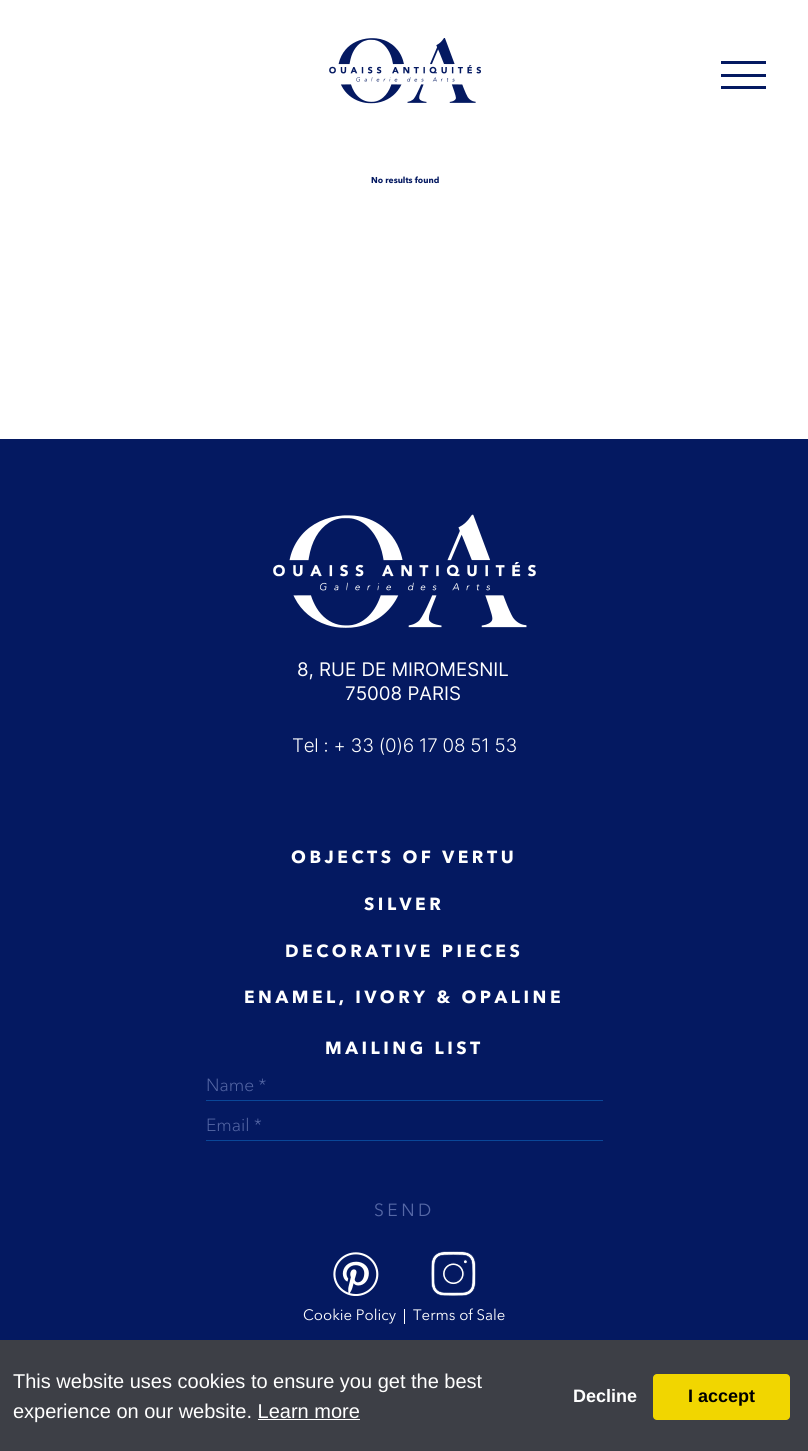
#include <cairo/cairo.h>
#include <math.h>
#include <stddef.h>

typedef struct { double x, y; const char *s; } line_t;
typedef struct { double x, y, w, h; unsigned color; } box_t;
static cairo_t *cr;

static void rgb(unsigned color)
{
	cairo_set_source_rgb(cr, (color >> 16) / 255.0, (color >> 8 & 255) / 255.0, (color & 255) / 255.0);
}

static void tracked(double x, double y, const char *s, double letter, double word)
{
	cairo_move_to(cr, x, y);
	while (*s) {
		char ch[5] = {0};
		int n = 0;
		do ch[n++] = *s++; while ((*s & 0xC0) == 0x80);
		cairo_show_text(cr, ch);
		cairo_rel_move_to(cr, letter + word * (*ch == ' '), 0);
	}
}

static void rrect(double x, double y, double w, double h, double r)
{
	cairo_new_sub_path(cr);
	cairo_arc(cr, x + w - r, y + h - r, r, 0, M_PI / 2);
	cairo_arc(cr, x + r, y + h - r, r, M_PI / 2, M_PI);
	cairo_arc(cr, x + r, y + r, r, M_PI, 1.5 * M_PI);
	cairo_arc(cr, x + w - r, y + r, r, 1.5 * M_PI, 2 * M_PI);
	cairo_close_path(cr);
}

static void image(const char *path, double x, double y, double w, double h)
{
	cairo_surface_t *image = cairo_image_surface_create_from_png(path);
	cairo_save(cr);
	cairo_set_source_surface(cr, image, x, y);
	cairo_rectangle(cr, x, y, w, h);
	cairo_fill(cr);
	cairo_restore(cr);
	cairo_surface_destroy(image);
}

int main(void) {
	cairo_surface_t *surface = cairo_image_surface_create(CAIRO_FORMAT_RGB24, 808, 1451);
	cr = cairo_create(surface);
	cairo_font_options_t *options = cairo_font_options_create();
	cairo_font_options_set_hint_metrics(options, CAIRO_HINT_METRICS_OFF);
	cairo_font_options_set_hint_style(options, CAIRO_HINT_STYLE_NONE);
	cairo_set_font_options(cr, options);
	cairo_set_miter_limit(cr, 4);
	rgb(0xffffff);
	cairo_paint(cr);
	image("img/1.png", 329, 38, 152, 66);
	{
		static const box_t items[] = {
			{721, 61, 45, 3, 0x041961},
			{721, 74, 45, 3, 0x041961},
			{721, 86, 45, 3, 0x041961},
			{0, 439, 808, 901, 0x041961},
			{0, 1340, 808, 111, 0x3d3f46},
		};
		for (size_t i = 0; i < sizeof items / sizeof *items; i++) {
			rgb(items[i].color);
			cairo_rectangle(cr, items[i].x, items[i].y, items[i].w, items[i].h);
			cairo_fill(cr);
		}
	}
	image("img/2.png", 273, 514, 263, 114);
	rgb(0x0a4798);
	cairo_rectangle(cr, 206, 1100, 397, 1);
	cairo_fill(cr);
	cairo_rectangle(cr, 206, 1140, 397, 1);
	cairo_fill(cr);
	image("img/3.png", 333, 1252, 46, 44);
	image("img/4.png", 431, 1251, 45, 45);
	rgb(0xffffff);
	cairo_rectangle(cr, 404, 1309, 1, 15);
	cairo_fill(cr);
	cairo_rectangle(cr, 258, 1419, 102, 1);
	cairo_fill(cr);
	rgb(0xf1d600);
	rrect(653, 1374, 137, 46, 4);
	cairo_fill(cr);
	cairo_select_font_face(cr, "Avenir Next", CAIRO_FONT_SLANT_NORMAL, CAIRO_FONT_WEIGHT_BOLD);
	cairo_set_font_size(cr, 8.5);
	rgb(0x041961);
	cairo_move_to(cr, 371, 183);
	cairo_show_text(cr, "No results found");
	cairo_select_font_face(cr, "Inter", CAIRO_FONT_SLANT_NORMAL, CAIRO_FONT_WEIGHT_NORMAL);
	cairo_set_font_size(cr, 18.75);
	rgb(0xffffff);
	cairo_move_to(cr, 297, 676);
	cairo_show_text(cr, "8, RUE DE MIROMESNIL");
	cairo_move_to(cr, 345, 700);
	cairo_show_text(cr, "75008 PARIS");
	cairo_select_font_face(cr, "Inter Light", CAIRO_FONT_SLANT_NORMAL, CAIRO_FONT_WEIGHT_NORMAL);
	tracked(292, 752, "Tel : + 33 (0)6 17 08 51 53", -0.2, 0);
	cairo_select_font_face(cr, "Avenir Next", CAIRO_FONT_SLANT_NORMAL, CAIRO_FONT_WEIGHT_BOLD);
	cairo_set_font_size(cr, 17.5);
	{
		static const line_t items[] = {
			{291, 863, "OBJECTS OF VERTU"},
			{364, 910, "SILVER"},
			{285, 957, "DECORATIVE PIECES"},
			{244, 1003, "ENAMEL, IVORY & OPALINE"},
			{325, 1054, "MAILING LIST"},
		};
		for (size_t i = 0; i < sizeof items / sizeof *items; i++) {
			tracked(items[i].x, items[i].y, items[i].s, 3.5, 0);
		}
	}
	cairo_select_font_face(cr, "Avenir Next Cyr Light", CAIRO_FONT_SLANT_NORMAL, CAIRO_FONT_WEIGHT_NORMAL);
	rgb(0x5668a6);
	cairo_move_to(cr, 206, 1091);
	cairo_show_text(cr, "Name *");
	cairo_move_to(cr, 206, 1131);
	cairo_show_text(cr, "Email *");
	cairo_select_font_face(cr, "Avenir Next", CAIRO_FONT_SLANT_NORMAL, CAIRO_FONT_WEIGHT_NORMAL);
	tracked(374, 1216, "SEND", 3.5, 0);
	cairo_set_font_size(cr, 15);
	rgb(0xffffff);
	cairo_move_to(cr, 303, 1320);
	cairo_show_text(cr, "Cookie Policy");
	cairo_move_to(cr, 413, 1320);
	cairo_show_text(cr, "Terms of Sale");
	cairo_select_font_face(cr, "Liberation Sans", CAIRO_FONT_SLANT_NORMAL, CAIRO_FONT_WEIGHT_NORMAL);
	cairo_set_font_size(cr, 20);
	cairo_move_to(cr, 13, 1388);
	cairo_show_text(cr, "This website uses cookies to ensure you get the best");
	cairo_move_to(cr, 13, 1418);
	cairo_show_text(cr, "experience on our website. Learn more");
	cairo_select_font_face(cr, "Liberation Sans", CAIRO_FONT_SLANT_NORMAL, CAIRO_FONT_WEIGHT_BOLD);
	cairo_set_font_size(cr, 18);
	cairo_move_to(cr, 573, 1402);
	cairo_show_text(cr, "Decline");
	rgb(0x000000);
	cairo_move_to(cr, 688, 1402);
	cairo_show_text(cr, "I accept");
	cairo_surface_write_to_png(surface, "page.png");
	cairo_font_options_destroy(options);
	cairo_destroy(cr);
	cairo_surface_destroy(surface);
	return 0;
}
